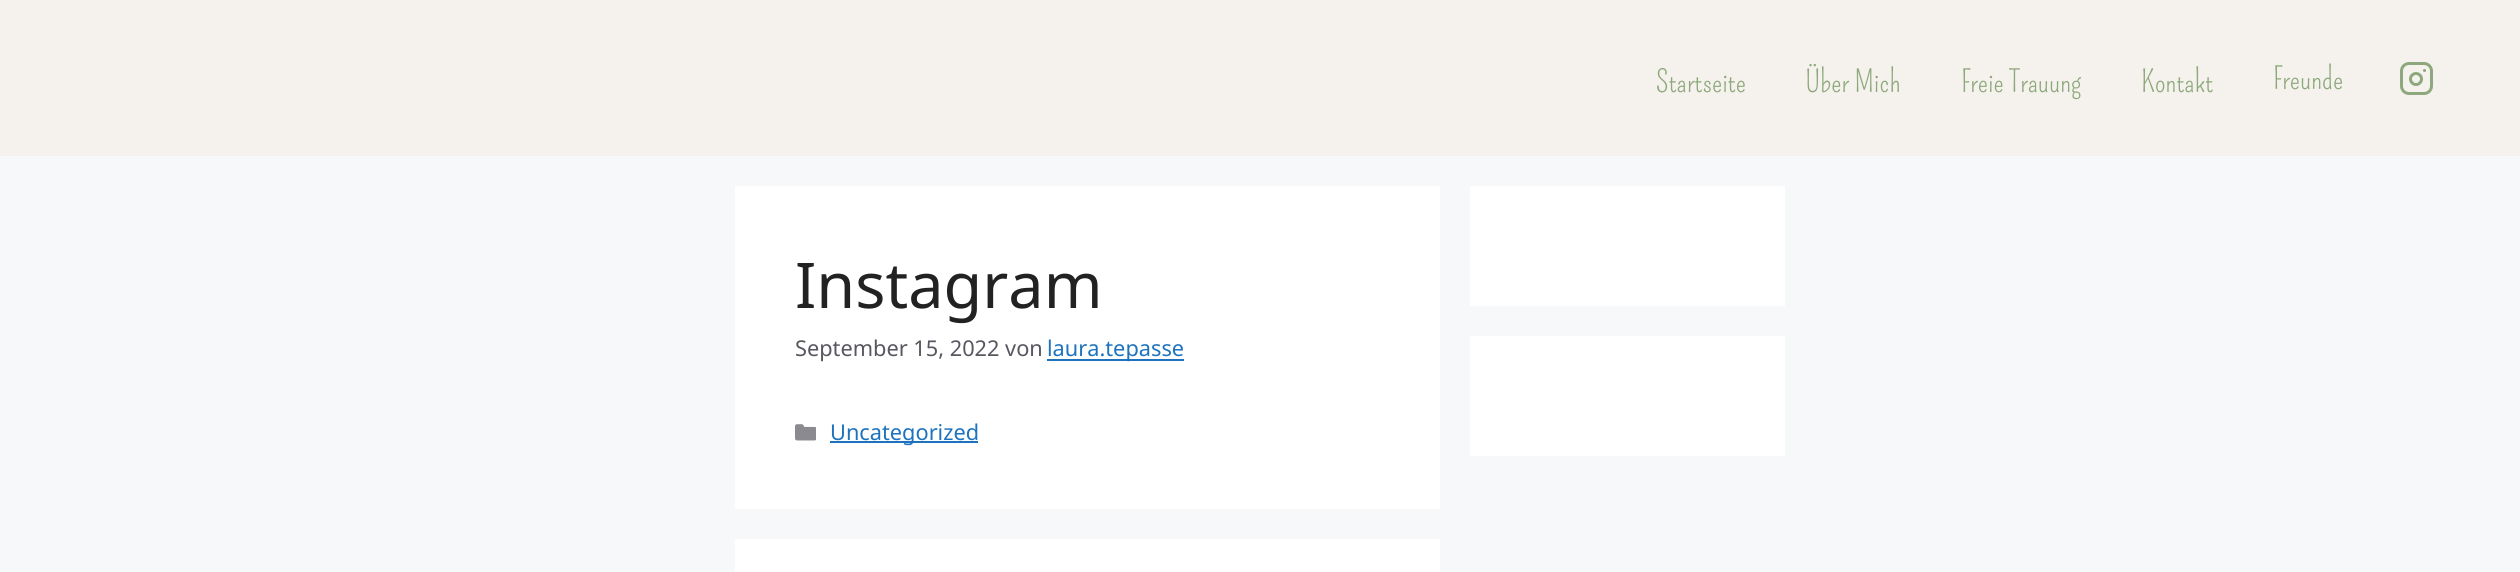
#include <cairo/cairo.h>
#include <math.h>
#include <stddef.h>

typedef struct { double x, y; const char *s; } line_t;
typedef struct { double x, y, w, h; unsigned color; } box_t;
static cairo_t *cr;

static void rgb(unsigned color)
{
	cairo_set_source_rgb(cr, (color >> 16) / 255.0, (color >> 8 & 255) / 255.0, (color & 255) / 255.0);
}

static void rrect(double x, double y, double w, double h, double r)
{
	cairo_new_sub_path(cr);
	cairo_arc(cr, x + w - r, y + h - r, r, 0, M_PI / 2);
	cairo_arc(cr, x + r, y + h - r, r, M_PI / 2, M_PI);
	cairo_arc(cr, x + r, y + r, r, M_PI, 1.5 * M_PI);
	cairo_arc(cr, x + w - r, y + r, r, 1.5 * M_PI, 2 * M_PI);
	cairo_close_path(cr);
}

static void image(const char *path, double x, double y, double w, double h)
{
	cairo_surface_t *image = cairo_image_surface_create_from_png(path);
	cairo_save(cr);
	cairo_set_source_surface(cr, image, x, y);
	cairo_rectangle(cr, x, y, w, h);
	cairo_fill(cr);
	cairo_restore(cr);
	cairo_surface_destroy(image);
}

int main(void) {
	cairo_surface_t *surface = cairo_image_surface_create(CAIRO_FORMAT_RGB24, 2520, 572);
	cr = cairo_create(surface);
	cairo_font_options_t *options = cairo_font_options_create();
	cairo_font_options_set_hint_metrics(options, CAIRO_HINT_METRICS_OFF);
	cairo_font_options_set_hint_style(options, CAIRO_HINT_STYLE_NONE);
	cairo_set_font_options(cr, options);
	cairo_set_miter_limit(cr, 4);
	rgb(0xf7f8f9);
	cairo_paint(cr);
	rgb(0xf5f1ec);
	cairo_rectangle(cr, 0, 0, 2520, 156);
	cairo_fill(cr);
	rrect(2401.5, 63.5, 30, 30, 7.5);
	rgb(0x8ca87c);
	cairo_set_line_width(cr, 3);
	cairo_stroke(cr);
	cairo_arc(cr, 2424.5, 70.5, 1.5, 0, 2 * M_PI);
	cairo_fill(cr);
	cairo_arc(cr, 2416, 79, 5.5, 0, 2 * M_PI);
	cairo_stroke(cr);
	rgb(0xffffff);
	cairo_rectangle(cr, 735, 186, 705, 323);
	cairo_fill(cr);
	rgb(0x1e73be);
	cairo_rectangle(cr, 1047, 359, 137, 2);
	cairo_fill(cr);
	image("img/1.png", 795, 424, 21, 17);
	{
		static const box_t items[] = {
			{830, 441, 148, 2, 0x1e73be},
			{735, 539, 705, 33, 0xffffff},
			{1470, 186, 315, 120, 0xffffff},
			{1470, 336, 315, 120, 0xffffff},
		};
		for (size_t i = 0; i < sizeof items / sizeof *items; i++) {
			rgb(items[i].color);
			cairo_rectangle(cr, items[i].x, items[i].y, items[i].w, items[i].h);
			cairo_fill(cr);
		}
	}
	cairo_select_font_face(cr, "Pompiere", CAIRO_FONT_SLANT_NORMAL, CAIRO_FONT_WEIGHT_NORMAL);
	cairo_set_font_size(cr, 30);
	rgb(0x8ca87c);
	{
		static const line_t items[] = {
			{1656, 92, "Startseite"},
			{1805, 92, "Über Mich"},
			{1961, 92, "Freie Trauung"},
			{2141, 92, "Kontakt"},
			{2273, 89, "Freunde"},
		};
		for (size_t i = 0; i < sizeof items / sizeof *items; i++) {
			cairo_move_to(cr, items[i].x, items[i].y);
			cairo_show_text(cr, items[i].s);
		}
	}
	cairo_select_font_face(cr, "Noto Sans", CAIRO_FONT_SLANT_NORMAL, CAIRO_FONT_WEIGHT_NORMAL);
	cairo_set_font_size(cr, 63);
	rgb(0x222222);
	cairo_move_to(cr, 795, 308);
	cairo_show_text(cr, "Instagram");
	cairo_set_font_size(cr, 21.75);
	rgb(0x575760);
	cairo_move_to(cr, 795, 356);
	cairo_show_text(cr, "September 15, 2022 von");
	rgb(0x1e73be);
	cairo_move_to(cr, 1047, 356);
	cairo_show_text(cr, "laura.tepasse");
	cairo_move_to(cr, 830, 440);
	cairo_show_text(cr, "Uncategorized");
	cairo_surface_write_to_png(surface, "page.png");
	cairo_font_options_destroy(options);
	cairo_destroy(cr);
	cairo_surface_destroy(surface);
	return 0;
}
